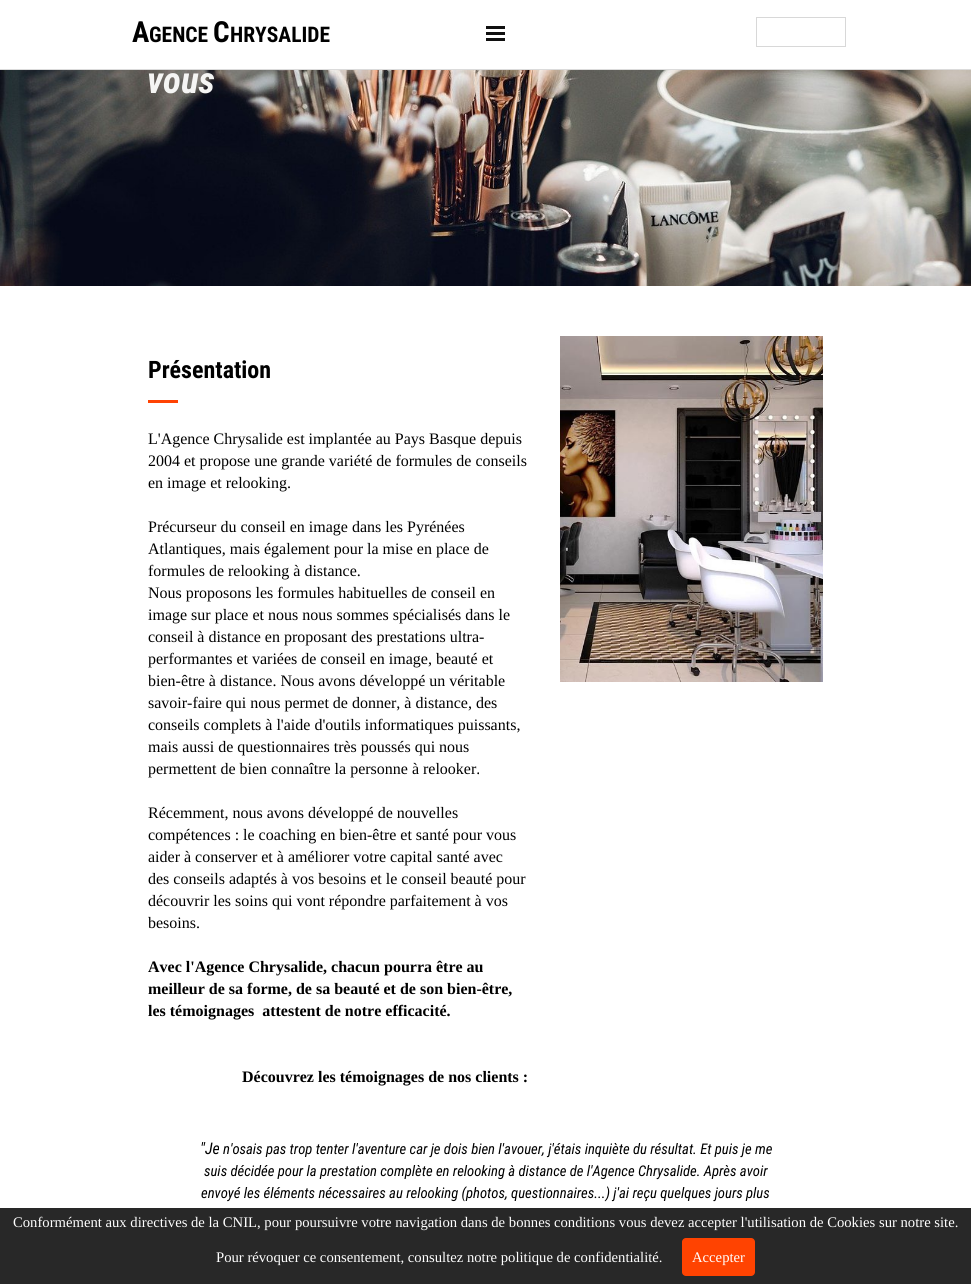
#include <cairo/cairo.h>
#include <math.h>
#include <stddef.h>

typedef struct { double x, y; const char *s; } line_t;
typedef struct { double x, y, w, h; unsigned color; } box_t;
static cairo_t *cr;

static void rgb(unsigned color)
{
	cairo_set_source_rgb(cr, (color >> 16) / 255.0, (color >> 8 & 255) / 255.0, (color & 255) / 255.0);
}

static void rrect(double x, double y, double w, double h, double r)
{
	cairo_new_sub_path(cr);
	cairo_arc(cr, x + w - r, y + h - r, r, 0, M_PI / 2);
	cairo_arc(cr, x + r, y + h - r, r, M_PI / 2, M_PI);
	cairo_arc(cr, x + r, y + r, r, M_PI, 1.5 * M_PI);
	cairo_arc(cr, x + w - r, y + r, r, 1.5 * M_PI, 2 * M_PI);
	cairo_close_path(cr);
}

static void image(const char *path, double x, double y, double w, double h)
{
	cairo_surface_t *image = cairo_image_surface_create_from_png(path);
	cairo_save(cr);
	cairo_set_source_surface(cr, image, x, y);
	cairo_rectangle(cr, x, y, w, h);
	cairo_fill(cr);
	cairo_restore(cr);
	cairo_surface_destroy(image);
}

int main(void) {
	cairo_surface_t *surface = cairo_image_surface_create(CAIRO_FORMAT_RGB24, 971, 1284);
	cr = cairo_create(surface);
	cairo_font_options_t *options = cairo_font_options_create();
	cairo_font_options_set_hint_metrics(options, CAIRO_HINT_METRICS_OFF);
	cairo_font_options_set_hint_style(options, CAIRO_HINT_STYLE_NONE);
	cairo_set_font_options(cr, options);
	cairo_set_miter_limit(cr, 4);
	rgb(0xffffff);
	cairo_paint(cr);
	{
		static const box_t items[] = {
			{486, 26, 19, 3, 0x101010},
			{486, 32, 19, 3, 0x101010},
			{486, 38, 19, 3, 0x101010},
		};
		for (size_t i = 0; i < sizeof items / sizeof *items; i++) {
			rgb(items[i].color);
			cairo_rectangle(cr, items[i].x, items[i].y, items[i].w, items[i].h);
			cairo_fill(cr);
		}
	}
	cairo_rectangle(cr, 756.5, 17.5, 89, 29);
	rgb(0xd8d8d8);
	cairo_set_line_width(cr, 1);
	cairo_stroke(cr);
	rgb(0xdbdbdb);
	cairo_rectangle(cr, 0, 69, 971, 1);
	cairo_fill(cr);
	image("img/1.png", 0, 70, 971, 216);
	rgb(0xff4303);
	cairo_rectangle(cr, 148, 400, 30, 3);
	cairo_fill(cr);
	image("img/2.png", 560, 336, 263, 346);
	rgb(0x282828);
	cairo_rectangle(cr, 0, 1208, 971, 76);
	cairo_fill(cr);
	rgb(0xff4301);
	rrect(682, 1238, 73, 38, 4);
	cairo_fill(cr);
	cairo_select_font_face(cr, "Roboto Condensed", CAIRO_FONT_SLANT_NORMAL, CAIRO_FONT_WEIGHT_BOLD);
	cairo_set_font_size(cr, 29);
	rgb(0x000000);
	cairo_move_to(cr, 132, 42);
	cairo_show_text(cr, "A");
	cairo_set_font_size(cr, 21.5);
	cairo_move_to(cr, 149, 42);
	cairo_show_text(cr, "GENCE");
	cairo_set_font_size(cr, 29);
	cairo_move_to(cr, 213, 42);
	cairo_show_text(cr, "C");
	cairo_set_font_size(cr, 21.5);
	cairo_move_to(cr, 230, 42);
	cairo_show_text(cr, "HRYSALIDE");
	cairo_select_font_face(cr, "Roboto Condensed", CAIRO_FONT_SLANT_ITALIC, CAIRO_FONT_WEIGHT_BOLD);
	cairo_set_font_size(cr, 37);
	rgb(0xf5f5f4);
	cairo_move_to(cr, 147, 93);
	cairo_show_text(cr, "vous");
	cairo_select_font_face(cr, "Roboto Condensed", CAIRO_FONT_SLANT_NORMAL, CAIRO_FONT_WEIGHT_BOLD);
	cairo_set_font_size(cr, 24);
	rgb(0x000000);
	cairo_move_to(cr, 148, 378);
	cairo_show_text(cr, "Présentation");
	cairo_select_font_face(cr, "Liberation Serif", CAIRO_FONT_SLANT_NORMAL, CAIRO_FONT_WEIGHT_NORMAL);
	cairo_set_font_size(cr, 16);
	{
		static const line_t items[] = {
			{148, 444, "L'Agence Chrysalide est implantée au Pays Basque depuis"},
			{148, 466, "2004 et propose une grande variété de formules de conseils"},
			{148, 488, "en image et relooking."},
			{148, 532, "Précurseur du conseil en image dans les Pyrénées"},
			{148, 554, "Atlantiques, mais également pour la mise en place de"},
			{148, 576, "formules de relooking à distance."},
			{148, 598, "Nous proposons les formules habituelles de conseil en"},
			{148, 620, "image sur place et nous nous sommes spécialisés dans le"},
			{148, 642, "conseil à distance en proposant des prestations ultra-"},
			{148, 664, "performantes et variées de conseil en image, beauté et"},
			{148, 686, "bien-être à distance. Nous avons développé un véritable"},
			{148, 708, "savoir-faire qui nous permet de donner, à distance, des"},
			{148, 730, "conseils complets à l'aide d'outils informatiques puissants,"},
			{148, 752, "mais aussi de questionnaires très poussés qui nous"},
			{148, 774, "permettent de bien connaître la personne à relooker."},
			{148, 818, "Récemment, nous avons développé de nouvelles"},
			{148, 840, "compétences : le coaching en bien-être et santé pour vous"},
			{148, 862, "aider à conserver et à améliorer votre capital santé avec"},
			{148, 884, "des conseils adaptés à vos besoins et le conseil beauté pour"},
			{148, 906, "découvrir les soins qui vont répondre parfaitement à vos"},
			{148, 928, "besoins."},
		};
		for (size_t i = 0; i < sizeof items / sizeof *items; i++) {
			cairo_move_to(cr, items[i].x, items[i].y);
			cairo_show_text(cr, items[i].s);
		}
	}
	cairo_select_font_face(cr, "Liberation Serif", CAIRO_FONT_SLANT_NORMAL, CAIRO_FONT_WEIGHT_BOLD);
	{
		static const line_t items[] = {
			{148, 972, "Avec l'Agence Chrysalide, chacun pourra être au"},
			{148, 994, "meilleur de sa forme, de sa beauté et de son bien-être,"},
			{148, 1016, "les témoignages  attestent de notre efficacité."},
			{242, 1082, "Découvrez les témoignages de nos clients :"},
		};
		for (size_t i = 0; i < sizeof items / sizeof *items; i++) {
			cairo_move_to(cr, items[i].x, items[i].y);
			cairo_show_text(cr, items[i].s);
		}
	}
	cairo_select_font_face(cr, "Roboto Condensed", CAIRO_FONT_SLANT_ITALIC, CAIRO_FONT_WEIGHT_NORMAL);
	cairo_move_to(cr, 200, 1154);
	cairo_show_text(cr, "\"Je");
	cairo_set_font_size(cr, 14.67);
	{
		static const line_t items[] = {
			{223, 1154, "n'osais pas trop tenter l'aventure car je dois bien l'avouer, j'étais inquiète du résultat. Et puis je me"},
			{204, 1176, "suis décidée pour la prestation complète en relooking à distance de l'Agence Chrysalide. Après avoir"},
			{201, 1198, "envoyé les éléments nécessaires au relooking (photos, questionnaires...) j'ai reçu quelques jours plus"},
		};
		for (size_t i = 0; i < sizeof items / sizeof *items; i++) {
			cairo_move_to(cr, items[i].x, items[i].y);
			cairo_show_text(cr, items[i].s);
		}
	}
	cairo_select_font_face(cr, "Liberation Serif", CAIRO_FONT_SLANT_NORMAL, CAIRO_FONT_WEIGHT_NORMAL);
	rgb(0xffffff);
	{
		static const line_t items[] = {
			{13, 1227, "Conformément aux directives de la CNIL, pour poursuivre votre navigation dans de bonnes conditions vous devez accepter l'utilisation de Cookies sur notre site."},
			{216, 1262, "Pour révoquer ce consentement, consultez notre politique de confidentialité."},
			{692, 1262, "Accepter"},
		};
		for (size_t i = 0; i < sizeof items / sizeof *items; i++) {
			cairo_move_to(cr, items[i].x, items[i].y);
			cairo_show_text(cr, items[i].s);
		}
	}
	cairo_surface_write_to_png(surface, "page.png");
	cairo_font_options_destroy(options);
	cairo_destroy(cr);
	cairo_surface_destroy(surface);
	return 0;
}
